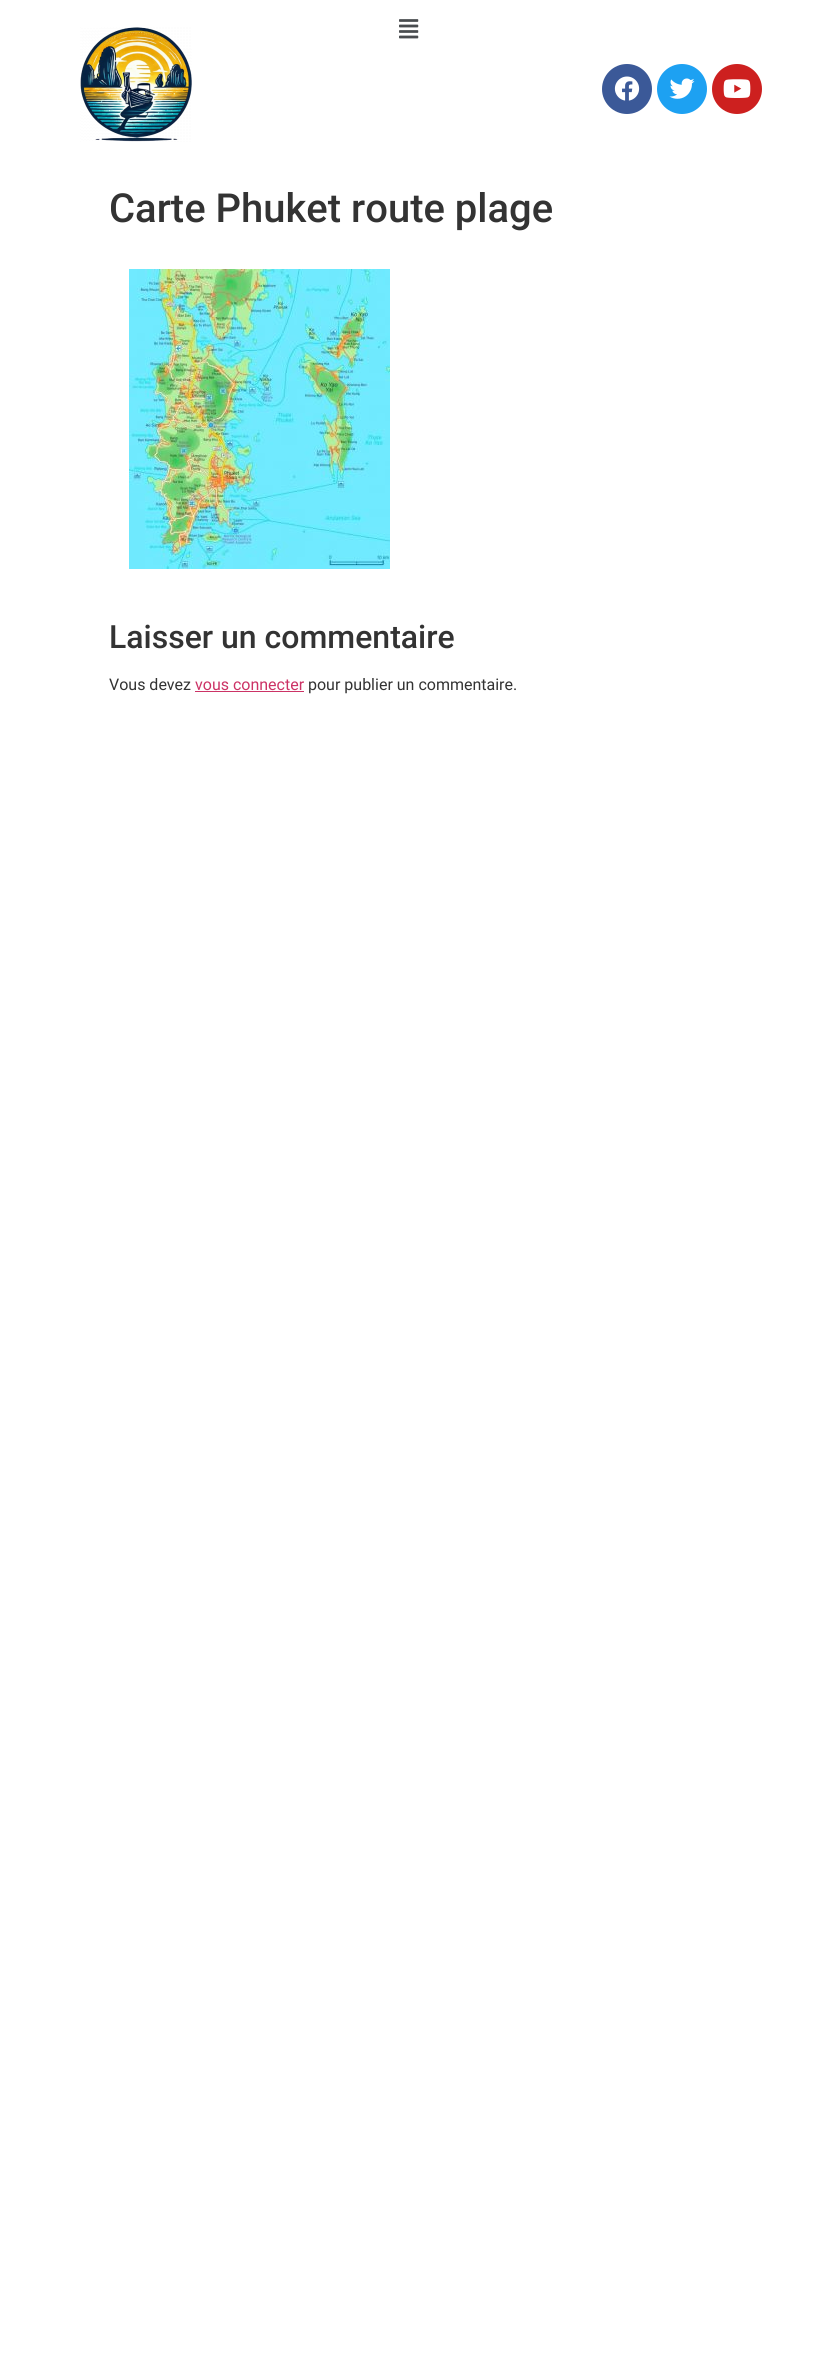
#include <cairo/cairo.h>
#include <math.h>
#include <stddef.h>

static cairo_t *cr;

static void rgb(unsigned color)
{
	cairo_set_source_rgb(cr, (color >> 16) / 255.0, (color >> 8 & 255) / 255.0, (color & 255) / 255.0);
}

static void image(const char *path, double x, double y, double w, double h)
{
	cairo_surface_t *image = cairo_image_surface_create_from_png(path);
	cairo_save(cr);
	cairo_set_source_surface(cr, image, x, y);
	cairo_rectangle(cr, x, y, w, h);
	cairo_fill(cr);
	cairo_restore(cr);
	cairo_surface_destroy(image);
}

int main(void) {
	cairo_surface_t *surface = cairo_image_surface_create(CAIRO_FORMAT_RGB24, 818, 2358);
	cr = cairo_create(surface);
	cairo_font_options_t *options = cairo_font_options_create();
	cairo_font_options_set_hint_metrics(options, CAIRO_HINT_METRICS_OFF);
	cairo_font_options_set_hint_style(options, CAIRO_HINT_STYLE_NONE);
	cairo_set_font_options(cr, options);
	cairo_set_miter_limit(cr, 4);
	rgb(0xffffff);
	cairo_paint(cr);
	image("img/1.png", 80, 27, 112, 115);
	image("img/2.png", 399, 19, 20, 20);
	rgb(0x3b5998);
	cairo_arc(cr, 627, 89, 25, 0, 2 * M_PI);
	cairo_fill(cr);
	image("img/3.png", 614, 76, 26, 25);
	rgb(0x1da1f2);
	cairo_arc(cr, 682, 89, 25, 0, 2 * M_PI);
	cairo_fill(cr);
	image("img/4.png", 669, 78, 26, 21);
	rgb(0xcd201f);
	cairo_arc(cr, 737, 89, 25, 0, 2 * M_PI);
	cairo_fill(cr);
	image("img/5.png", 723, 79, 28, 19);
	image("img/6.png", 129, 269, 261, 300);
	rgb(0xcc3366);
	cairo_rectangle(cr, 195, 691, 109, 1);
	cairo_fill(cr);
	cairo_select_font_face(cr, "Roboto Medium", CAIRO_FONT_SLANT_NORMAL, CAIRO_FONT_WEIGHT_NORMAL);
	cairo_set_font_size(cr, 40);
	rgb(0x333333);
	cairo_move_to(cr, 109, 222);
	cairo_show_text(cr, "Carte Phuket route plage");
	cairo_set_font_size(cr, 32);
	cairo_move_to(cr, 109, 648);
	cairo_show_text(cr, "Laisser un commentaire");
	cairo_select_font_face(cr, "Roboto", CAIRO_FONT_SLANT_NORMAL, CAIRO_FONT_WEIGHT_NORMAL);
	cairo_set_font_size(cr, 16);
	cairo_move_to(cr, 109, 690);
	cairo_show_text(cr, "Vous devez");
	rgb(0xcc3366);
	cairo_move_to(cr, 195, 690);
	cairo_show_text(cr, "vous connecter");
	rgb(0x333333);
	cairo_move_to(cr, 308, 690);
	cairo_show_text(cr, "pour publier un commentaire.");
	cairo_surface_write_to_png(surface, "page.png");
	cairo_font_options_destroy(options);
	cairo_destroy(cr);
	cairo_surface_destroy(surface);
	return 0;
}
